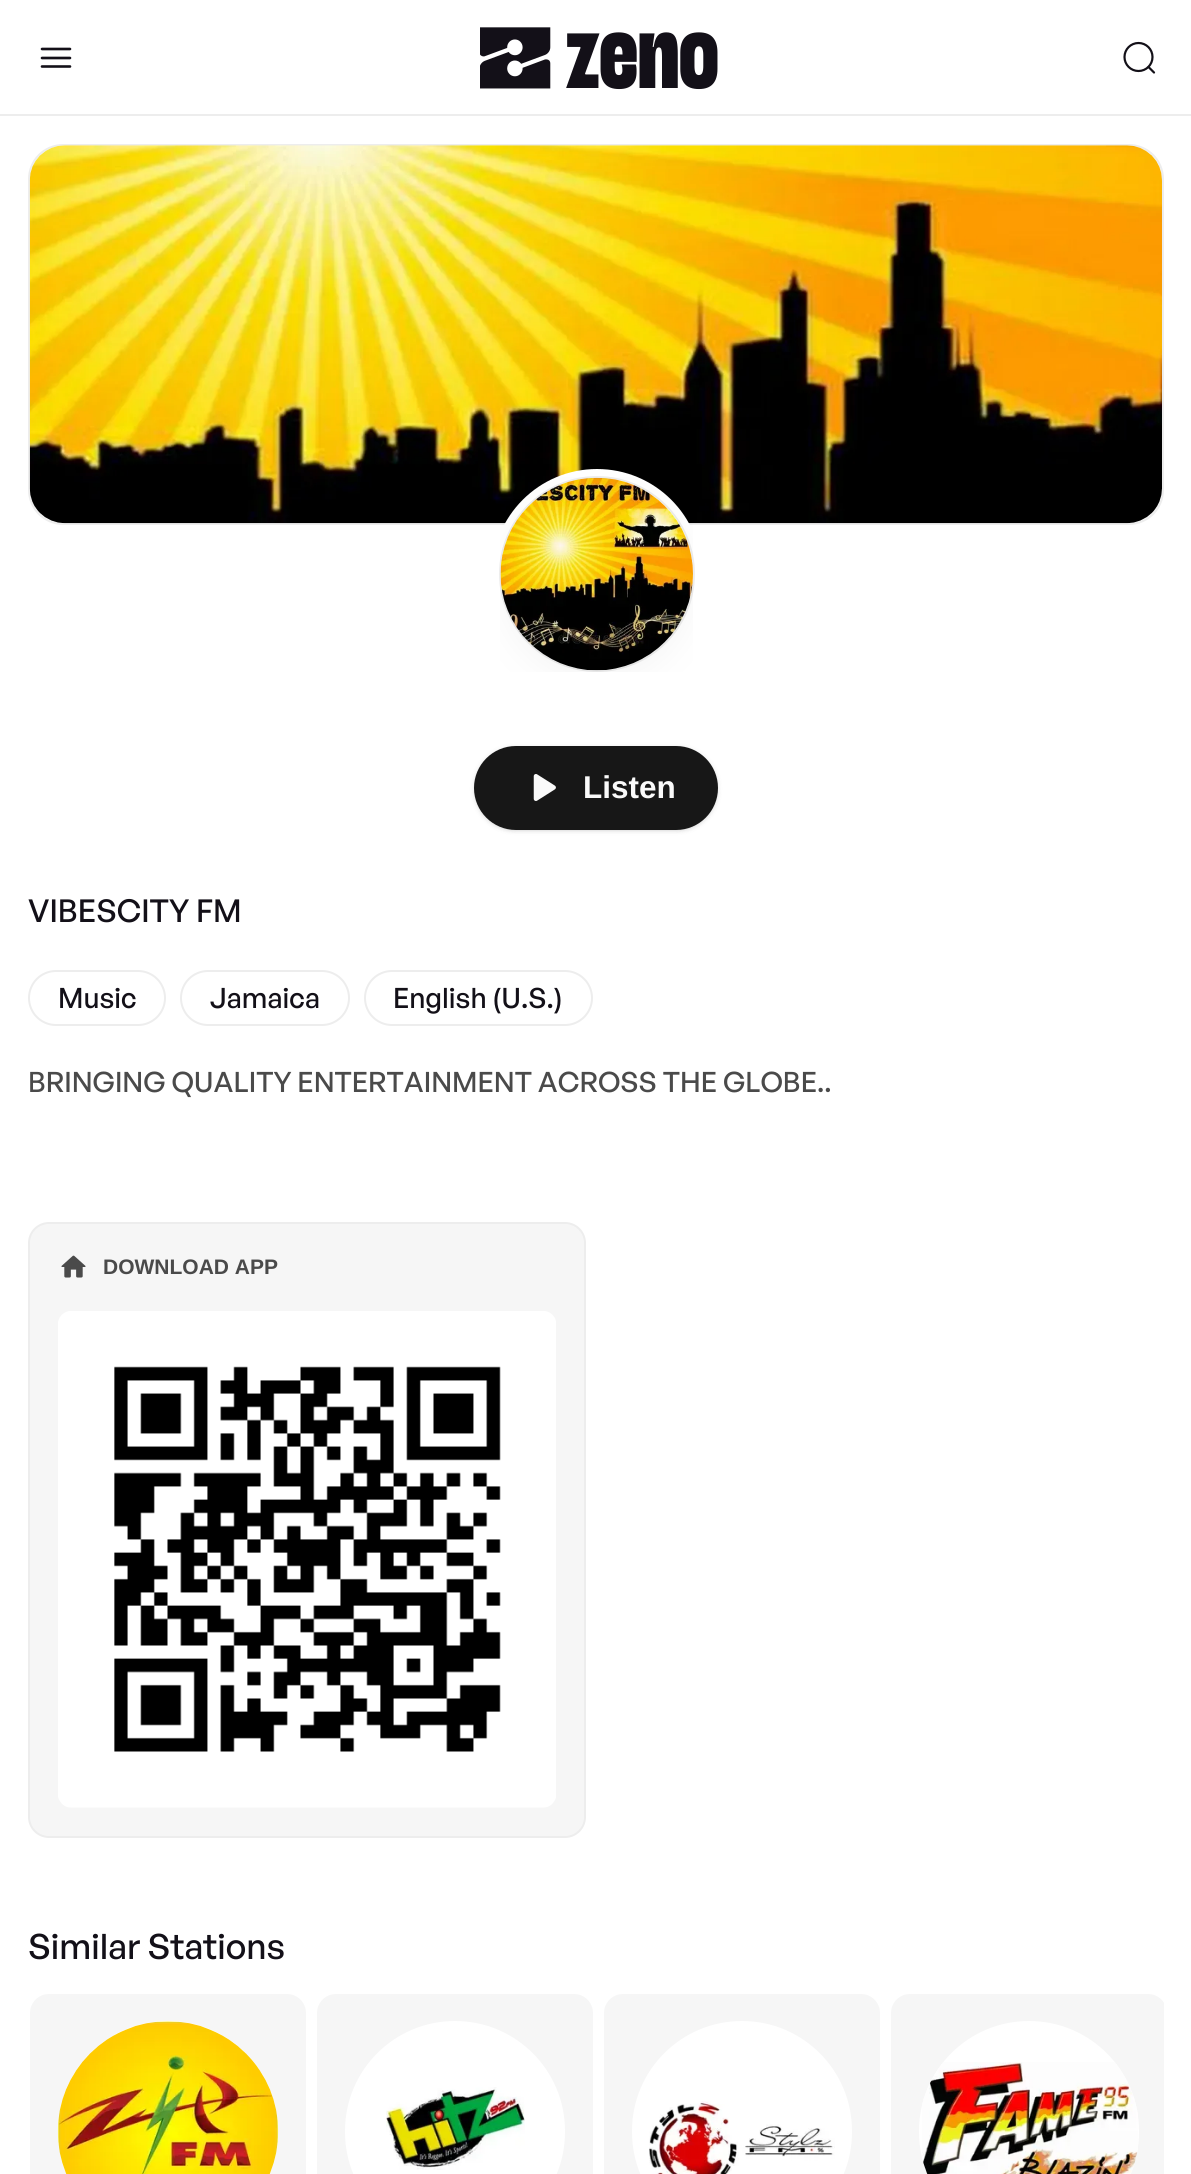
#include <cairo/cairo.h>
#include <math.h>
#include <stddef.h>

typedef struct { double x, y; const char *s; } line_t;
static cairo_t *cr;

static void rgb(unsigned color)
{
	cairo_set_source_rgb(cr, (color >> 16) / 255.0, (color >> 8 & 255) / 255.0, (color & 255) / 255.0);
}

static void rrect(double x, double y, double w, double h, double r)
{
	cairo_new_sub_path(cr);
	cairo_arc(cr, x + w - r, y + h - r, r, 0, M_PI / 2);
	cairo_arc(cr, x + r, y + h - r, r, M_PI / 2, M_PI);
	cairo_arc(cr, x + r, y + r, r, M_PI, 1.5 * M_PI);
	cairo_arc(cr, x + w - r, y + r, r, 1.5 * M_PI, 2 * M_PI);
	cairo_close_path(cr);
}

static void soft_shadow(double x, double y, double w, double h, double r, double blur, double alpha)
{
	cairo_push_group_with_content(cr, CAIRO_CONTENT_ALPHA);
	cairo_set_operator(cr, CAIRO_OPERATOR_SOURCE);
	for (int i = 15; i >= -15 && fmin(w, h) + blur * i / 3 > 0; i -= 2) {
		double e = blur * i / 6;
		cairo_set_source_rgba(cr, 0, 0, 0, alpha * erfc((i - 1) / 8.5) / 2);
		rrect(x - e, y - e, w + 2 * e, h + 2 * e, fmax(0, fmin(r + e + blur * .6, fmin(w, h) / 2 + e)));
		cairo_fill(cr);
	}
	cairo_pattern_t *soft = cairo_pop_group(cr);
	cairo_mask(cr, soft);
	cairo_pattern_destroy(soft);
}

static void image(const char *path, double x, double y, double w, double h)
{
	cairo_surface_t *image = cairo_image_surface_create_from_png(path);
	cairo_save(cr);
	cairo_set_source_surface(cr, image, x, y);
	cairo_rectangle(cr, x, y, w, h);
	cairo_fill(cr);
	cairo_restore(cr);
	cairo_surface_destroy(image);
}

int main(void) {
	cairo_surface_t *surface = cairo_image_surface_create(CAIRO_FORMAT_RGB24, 1191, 2174);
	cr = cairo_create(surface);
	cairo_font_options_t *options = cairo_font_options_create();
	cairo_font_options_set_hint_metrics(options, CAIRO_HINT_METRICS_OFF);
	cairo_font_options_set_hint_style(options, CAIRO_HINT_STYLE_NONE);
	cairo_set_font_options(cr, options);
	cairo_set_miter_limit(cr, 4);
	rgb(0xffffff);
	cairo_paint(cr);
	rgb(0xededed);
	cairo_rectangle(cr, 0, 114, 1191, 2);
	cairo_fill(cr);
	cairo_new_path(cr);
	cairo_move_to(cr, 70, 49);
	cairo_line_to(cr, 42, 49);
	cairo_move_to(cr, 70, 58);
	cairo_line_to(cr, 42, 58);
	cairo_move_to(cr, 70, 66.5);
	cairo_line_to(cr, 42, 66.5);
	rgb(0x131018);
	cairo_set_line_width(cr, 2.6);
	cairo_set_line_cap(cr, CAIRO_LINE_CAP_ROUND);
	cairo_stroke(cr);
	image("img/1.png", 480, 27, 71, 62);
	cairo_arc(cr, 1138.5, 57, 14, 0, 2 * M_PI);
	cairo_set_line_width(cr, 2.2);
	cairo_set_line_cap(cr, CAIRO_LINE_CAP_BUTT);
	cairo_stroke(cr);
	cairo_new_path(cr);
	cairo_move_to(cr, 1148.5, 67);
	cairo_line_to(cr, 1154, 72.5);
	cairo_set_line_cap(cr, CAIRO_LINE_CAP_ROUND);
	cairo_stroke(cr);
	rgb(0xf6f6f6);
	rrect(29, 145, 1134, 379, 34);
	cairo_fill_preserve(cr);
	rgb(0xededed);
	cairo_set_line_width(cr, 2);
	cairo_set_line_cap(cr, CAIRO_LINE_CAP_BUTT);
	cairo_stroke(cr);
	image("img/2.png", 29, 145, 1133, 379);
	rgb(0xffffff);
	cairo_arc(cr, 597, 574, 105, 0, 2 * M_PI);
	cairo_fill(cr);
	cairo_arc(cr, 597, 574, 97, 0, 2 * M_PI);
	rgb(0xededed);
	cairo_stroke(cr);
	rgb(0xf6f6f6);
	cairo_arc(cr, 597, 574, 96, 0, 2 * M_PI);
	cairo_fill(cr);
	image("img/3.png", 500, 477, 193, 195);
	rgb(0x000000);
	soft_shadow(476, 749, 240, 81, 40.5, 2, 0.1);
	soft_shadow(474, 747, 244, 84, 42, 2.5, 0.1);
	rgb(0x171717);
	rrect(474, 746, 244, 84, 42);
	cairo_fill(cr);
	image("img/4.png", 533, 774, 23, 27);
	rrect(29, 971, 136, 54, 27);
	rgb(0xededed);
	cairo_stroke(cr);
	rrect(181, 971, 168, 54, 27);
	cairo_stroke(cr);
	rrect(365, 971, 227, 54, 27);
	cairo_stroke(cr);
	rgb(0xf6f6f6);
	rrect(29, 1223, 556, 614, 20);
	cairo_fill_preserve(cr);
	rgb(0xededed);
	cairo_stroke(cr);
	image("img/5.png", 61, 1255, 25, 23);
	image("img/6.png", 58, 1311, 498, 497);
	rgb(0xf6f6f6);
	rrect(29, 1993, 278, 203, 20);
	cairo_fill_preserve(cr);
	rgb(0xffffff);
	cairo_stroke(cr);
	rrect(58, 2021, 220, 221, 110);
	cairo_fill(cr);
	image("img/7.png", 57, 2021, 222, 153);
	rgb(0xf6f6f6);
	rrect(316, 1993, 278, 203, 20);
	cairo_fill_preserve(cr);
	rgb(0xffffff);
	cairo_stroke(cr);
	rrect(345, 2021, 220, 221, 110);
	cairo_fill(cr);
	image("img/8.png", 386, 2087, 139, 83);
	rgb(0xf6f6f6);
	rrect(603, 1993, 278, 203, 20);
	cairo_fill_preserve(cr);
	rgb(0xffffff);
	cairo_stroke(cr);
	rrect(632, 2021, 220, 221, 110);
	cairo_fill(cr);
	image("img/9.png", 649, 2101, 186, 73);
	cairo_save(cr);
	cairo_rectangle(cr, 28, 1992, 1136, 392);
	cairo_clip(cr);
	rgb(0xf6f6f6);
	rrect(890, 1993, 278, 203, 20);
	cairo_fill_preserve(cr);
	rgb(0xffffff);
	cairo_stroke(cr);
	cairo_restore(cr);
	rrect(919, 2021, 220, 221, 110);
	cairo_fill(cr);
	image("img/10.png", 922, 2062, 216, 112);
	cairo_select_font_face(cr, "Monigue", CAIRO_FONT_SLANT_NORMAL, CAIRO_FONT_WEIGHT_NORMAL);
	cairo_set_font_size(cr, 105);
	rgb(0x131018);
	cairo_move_to(cr, 566, 88);
	cairo_show_text(cr, "zeno");
	cairo_select_font_face(cr, "Liberation Sans", CAIRO_FONT_SLANT_NORMAL, CAIRO_FONT_WEIGHT_BOLD);
	cairo_set_font_size(cr, 31.5);
	rgb(0xfafafa);
	cairo_move_to(cr, 583, 798);
	cairo_show_text(cr, "Listen");
	cairo_select_font_face(cr, "General Sans Medium", CAIRO_FONT_SLANT_NORMAL, CAIRO_FONT_WEIGHT_NORMAL);
	rgb(0x131018);
	cairo_move_to(cr, 28, 922);
	cairo_show_text(cr, "VIBESCITY FM");
	cairo_set_font_size(cr, 28);
	{
		static const line_t items[] = {
			{58, 1008, "Music"},
			{210, 1008, "Jamaica"},
			{393, 1008, "English (U.S.)"},
		};
		for (size_t i = 0; i < sizeof items / sizeof *items; i++) {
			cairo_move_to(cr, items[i].x, items[i].y);
			cairo_show_text(cr, items[i].s);
		}
	}
	rgb(0x4a4a4a);
	cairo_move_to(cr, 28, 1092);
	cairo_show_text(cr, "BRINGING QUALITY ENTERTAINMENT ACROSS THE GLOBE..");
	cairo_select_font_face(cr, "Liberation Sans", CAIRO_FONT_SLANT_NORMAL, CAIRO_FONT_WEIGHT_BOLD);
	cairo_set_font_size(cr, 21);
	cairo_move_to(cr, 103, 1274);
	cairo_show_text(cr, "DOWNLOAD APP");
	cairo_select_font_face(cr, "General Sans Medium", CAIRO_FONT_SLANT_NORMAL, CAIRO_FONT_WEIGHT_NORMAL);
	cairo_set_font_size(cr, 35);
	rgb(0x131018);
	cairo_move_to(cr, 28, 1959);
	cairo_show_text(cr, "Similar Stations");
	cairo_surface_write_to_png(surface, "page.png");
	cairo_font_options_destroy(options);
	cairo_destroy(cr);
	cairo_surface_destroy(surface);
	return 0;
}
